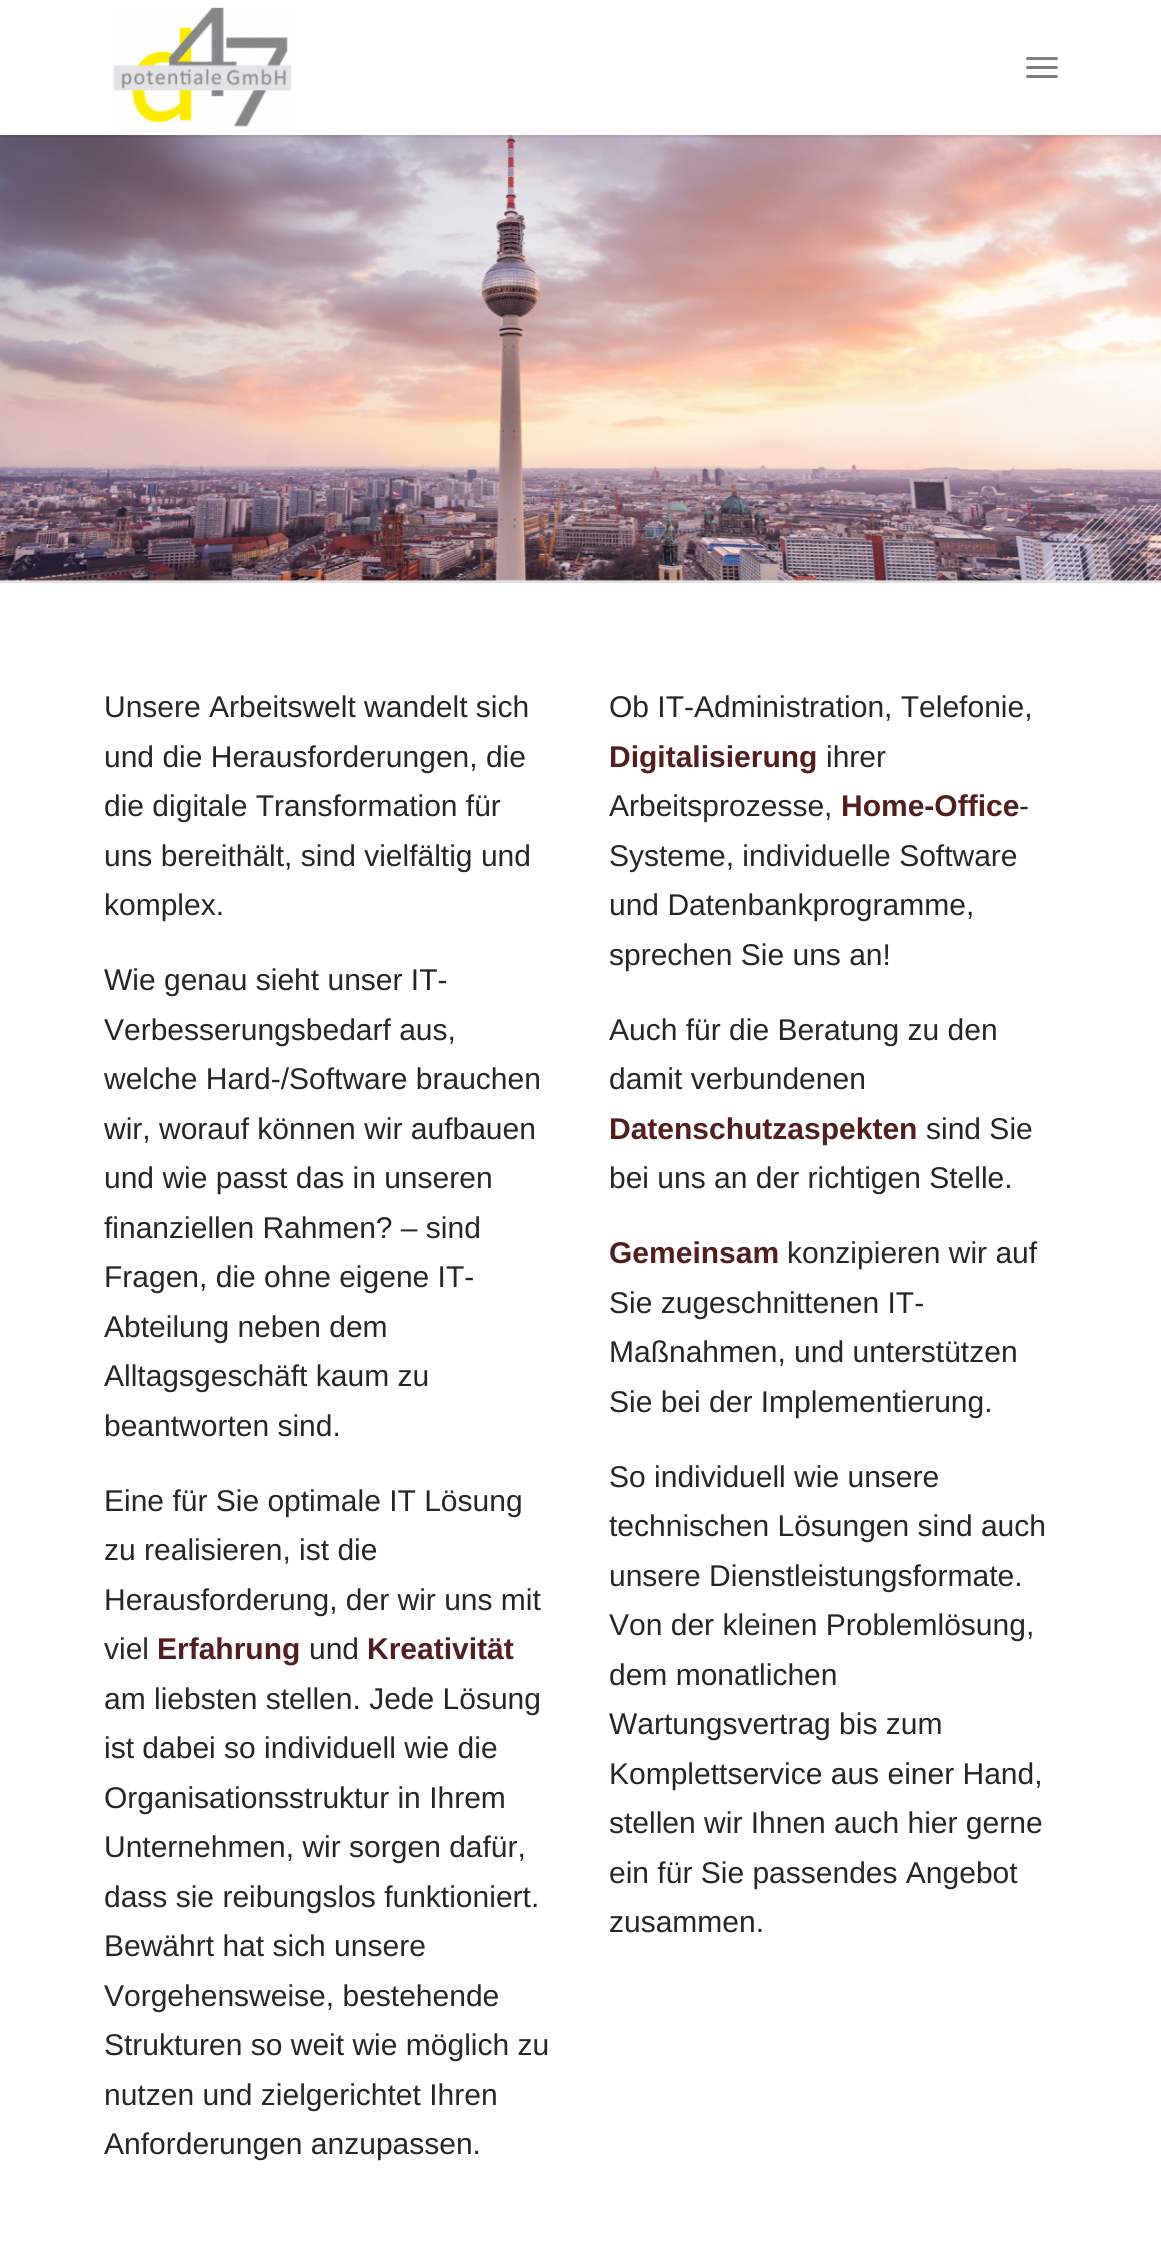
#include <cairo/cairo.h>
#include <math.h>
#include <stddef.h>

typedef struct { double x, y; const char *s; } line_t;
static cairo_t *cr;

static void rgb(unsigned color)
{
	cairo_set_source_rgb(cr, (color >> 16) / 255.0, (color >> 8 & 255) / 255.0, (color & 255) / 255.0);
}

static void rrect(double x, double y, double w, double h, double r)
{
	cairo_new_sub_path(cr);
	cairo_arc(cr, x + w - r, y + h - r, r, 0, M_PI / 2);
	cairo_arc(cr, x + r, y + h - r, r, M_PI / 2, M_PI);
	cairo_arc(cr, x + r, y + r, r, M_PI, 1.5 * M_PI);
	cairo_arc(cr, x + w - r, y + r, r, 1.5 * M_PI, 2 * M_PI);
	cairo_close_path(cr);
}

static void soft_shadow(double x, double y, double w, double h, double r, double blur, double alpha)
{
	cairo_push_group_with_content(cr, CAIRO_CONTENT_ALPHA);
	cairo_set_operator(cr, CAIRO_OPERATOR_SOURCE);
	for (int i = 15; i >= -15 && fmin(w, h) + blur * i / 3 > 0; i -= 2) {
		double e = blur * i / 6;
		cairo_set_source_rgba(cr, 0, 0, 0, alpha * erfc((i - 1) / 8.5) / 2);
		rrect(x - e, y - e, w + 2 * e, h + 2 * e, fmax(0, fmin(r + e + blur * .6, fmin(w, h) / 2 + e)));
		cairo_fill(cr);
	}
	cairo_pattern_t *soft = cairo_pop_group(cr);
	cairo_mask(cr, soft);
	cairo_pattern_destroy(soft);
}

static void image(const char *path, double x, double y, double w, double h)
{
	cairo_surface_t *image = cairo_image_surface_create_from_png(path);
	cairo_save(cr);
	cairo_set_source_surface(cr, image, x, y);
	cairo_rectangle(cr, x, y, w, h);
	cairo_fill(cr);
	cairo_restore(cr);
	cairo_surface_destroy(image);
}

int main(void) {
	cairo_surface_t *surface = cairo_image_surface_create(CAIRO_FORMAT_RGB24, 1161, 2246);
	cr = cairo_create(surface);
	cairo_font_options_t *options = cairo_font_options_create();
	cairo_font_options_set_hint_metrics(options, CAIRO_HINT_METRICS_OFF);
	cairo_font_options_set_hint_style(options, CAIRO_HINT_STYLE_NONE);
	cairo_set_font_options(cr, options);
	cairo_set_miter_limit(cr, 4);
	rgb(0xffffff);
	cairo_paint(cr);
	image("img/2.png", 0, 135, 1161, 446);
	cairo_save(cr);
	cairo_rectangle(cr, 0, 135, 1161, 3);
	cairo_clip(cr);
	rgb(0x000000);
	soft_shadow(-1, -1, 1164, 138, 0, 1.5, 0.1);
	cairo_restore(cr);
	image("img/1.png", 113, 7, 179, 120);
	rgb(0x808080);
	rrect(1026, 66, 32, 3, 1.5);
	cairo_fill(cr);
	rrect(1026, 57, 32, 3, 1.5);
	cairo_fill(cr);
	rrect(1026, 75, 32, 3, 1.5);
	cairo_fill(cr);
	rgb(0xe1e1e1);
	cairo_rectangle(cr, 0, 581, 1161, 2);
	cairo_fill(cr);
	cairo_select_font_face(cr, "Liberation Sans", CAIRO_FONT_SLANT_NORMAL, CAIRO_FONT_WEIGHT_NORMAL);
	cairo_set_font_size(cr, 30);
	rgb(0x262626);
	{
		static const line_t items[] = {
			{104, 717, "Unsere Arbeitswelt wandelt sich"},
			{104, 767, "und die Herausforderungen, die"},
			{104, 816, "die digitale Transformation für"},
			{104, 866, "uns bereithält, sind vielfältig und"},
			{104, 915, "komplex."},
			{104, 990, "Wie genau sieht unser IT-"},
			{104, 1040, "Verbesserungsbedarf aus,"},
			{104, 1089, "welche Hard-/Software brauchen"},
			{104, 1139, "wir, worauf können wir aufbauen"},
			{104, 1188, "und wie passt das in unseren"},
			{104, 1238, "finanziellen Rahmen? – sind"},
			{104, 1287, "Fragen, die ohne eigene IT-"},
			{104, 1337, "Abteilung neben dem"},
			{104, 1386, "Alltagsgeschäft kaum zu"},
			{104, 1436, "beantworten sind."},
			{104, 1511, "Eine für Sie optimale IT Lösung"},
			{104, 1560, "zu realisieren, ist die"},
			{104, 1610, "Herausforderung, der wir uns mit"},
			{104, 1659, "viel"},
		};
		for (size_t i = 0; i < sizeof items / sizeof *items; i++) {
			cairo_move_to(cr, items[i].x, items[i].y);
			cairo_show_text(cr, items[i].s);
		}
	}
	cairo_select_font_face(cr, "Liberation Sans", CAIRO_FONT_SLANT_NORMAL, CAIRO_FONT_WEIGHT_BOLD);
	rgb(0x521e1e);
	cairo_move_to(cr, 157, 1659);
	cairo_show_text(cr, "Erfahrung");
	cairo_select_font_face(cr, "Liberation Sans", CAIRO_FONT_SLANT_NORMAL, CAIRO_FONT_WEIGHT_NORMAL);
	rgb(0x262626);
	cairo_move_to(cr, 309, 1659);
	cairo_show_text(cr, "und");
	cairo_select_font_face(cr, "Liberation Sans", CAIRO_FONT_SLANT_NORMAL, CAIRO_FONT_WEIGHT_BOLD);
	rgb(0x521e1e);
	cairo_move_to(cr, 367, 1659);
	cairo_show_text(cr, "Kreativität");
	cairo_select_font_face(cr, "Liberation Sans", CAIRO_FONT_SLANT_NORMAL, CAIRO_FONT_WEIGHT_NORMAL);
	rgb(0x262626);
	{
		static const line_t items[] = {
			{104, 1709, "am liebsten stellen. Jede Lösung"},
			{104, 1758, "ist dabei so individuell wie die"},
			{104, 1808, "Organisationsstruktur in Ihrem"},
			{104, 1857, "Unternehmen, wir sorgen dafür,"},
			{104, 1907, "dass sie reibungslos funktioniert."},
			{104, 1956, "Bewährt hat sich unsere"},
			{104, 2006, "Vorgehensweise, bestehende"},
			{104, 2055, "Strukturen so weit wie möglich zu"},
			{104, 2105, "nutzen und zielgerichtet Ihren"},
			{104, 2154, "Anforderungen anzupassen."},
			{609, 717, "Ob IT-Administration, Telefonie,"},
		};
		for (size_t i = 0; i < sizeof items / sizeof *items; i++) {
			cairo_move_to(cr, items[i].x, items[i].y);
			cairo_show_text(cr, items[i].s);
		}
	}
	cairo_select_font_face(cr, "Liberation Sans", CAIRO_FONT_SLANT_NORMAL, CAIRO_FONT_WEIGHT_BOLD);
	rgb(0x521e1e);
	cairo_move_to(cr, 609, 767);
	cairo_show_text(cr, "Digitalisierung");
	cairo_select_font_face(cr, "Liberation Sans", CAIRO_FONT_SLANT_NORMAL, CAIRO_FONT_WEIGHT_NORMAL);
	rgb(0x262626);
	cairo_move_to(cr, 826, 767);
	cairo_show_text(cr, "ihrer");
	cairo_move_to(cr, 609, 816);
	cairo_show_text(cr, "Arbeitsprozesse,");
	cairo_select_font_face(cr, "Liberation Sans", CAIRO_FONT_SLANT_NORMAL, CAIRO_FONT_WEIGHT_BOLD);
	rgb(0x521e1e);
	cairo_move_to(cr, 841, 816);
	cairo_show_text(cr, "Home-Office");
	cairo_select_font_face(cr, "Liberation Sans", CAIRO_FONT_SLANT_NORMAL, CAIRO_FONT_WEIGHT_NORMAL);
	rgb(0x262626);
	{
		static const line_t items[] = {
			{1019, 816, "-"},
			{609, 866, "Systeme, individuelle Software"},
			{609, 915, "und Datenbankprogramme,"},
			{609, 965, "sprechen Sie uns an!"},
			{609, 1040, "Auch für die Beratung zu den"},
			{609, 1089, "damit verbundenen"},
		};
		for (size_t i = 0; i < sizeof items / sizeof *items; i++) {
			cairo_move_to(cr, items[i].x, items[i].y);
			cairo_show_text(cr, items[i].s);
		}
	}
	cairo_select_font_face(cr, "Liberation Sans", CAIRO_FONT_SLANT_NORMAL, CAIRO_FONT_WEIGHT_BOLD);
	rgb(0x521e1e);
	cairo_move_to(cr, 609, 1139);
	cairo_show_text(cr, "Datenschutzaspekten");
	cairo_select_font_face(cr, "Liberation Sans", CAIRO_FONT_SLANT_NORMAL, CAIRO_FONT_WEIGHT_NORMAL);
	rgb(0x262626);
	cairo_move_to(cr, 926, 1139);
	cairo_show_text(cr, "sind Sie");
	cairo_move_to(cr, 609, 1188);
	cairo_show_text(cr, "bei uns an der richtigen Stelle.");
	cairo_select_font_face(cr, "Liberation Sans", CAIRO_FONT_SLANT_NORMAL, CAIRO_FONT_WEIGHT_BOLD);
	rgb(0x521e1e);
	cairo_move_to(cr, 609, 1263);
	cairo_show_text(cr, "Gemeinsam");
	cairo_select_font_face(cr, "Liberation Sans", CAIRO_FONT_SLANT_NORMAL, CAIRO_FONT_WEIGHT_NORMAL);
	rgb(0x262626);
	{
		static const line_t items[] = {
			{787, 1263, "konzipieren wir auf"},
			{609, 1313, "Sie zugeschnittenen IT-"},
			{609, 1362, "Maßnahmen, und unterstützen"},
			{609, 1412, "Sie bei der Implementierung."},
			{609, 1487, "So individuell wie unsere"},
			{609, 1536, "technischen Lösungen sind auch"},
			{609, 1586, "unsere Dienstleistungsformate."},
			{609, 1635, "Von der kleinen Problemlösung,"},
			{609, 1685, "dem monatlichen"},
			{609, 1734, "Wartungsvertrag bis zum"},
			{609, 1784, "Komplettservice aus einer Hand,"},
			{609, 1833, "stellen wir Ihnen auch hier gerne"},
			{609, 1883, "ein für Sie passendes Angebot"},
			{609, 1932, "zusammen."},
		};
		for (size_t i = 0; i < sizeof items / sizeof *items; i++) {
			cairo_move_to(cr, items[i].x, items[i].y);
			cairo_show_text(cr, items[i].s);
		}
	}
	cairo_surface_write_to_png(surface, "page.png");
	cairo_font_options_destroy(options);
	cairo_destroy(cr);
	cairo_surface_destroy(surface);
	return 0;
}
